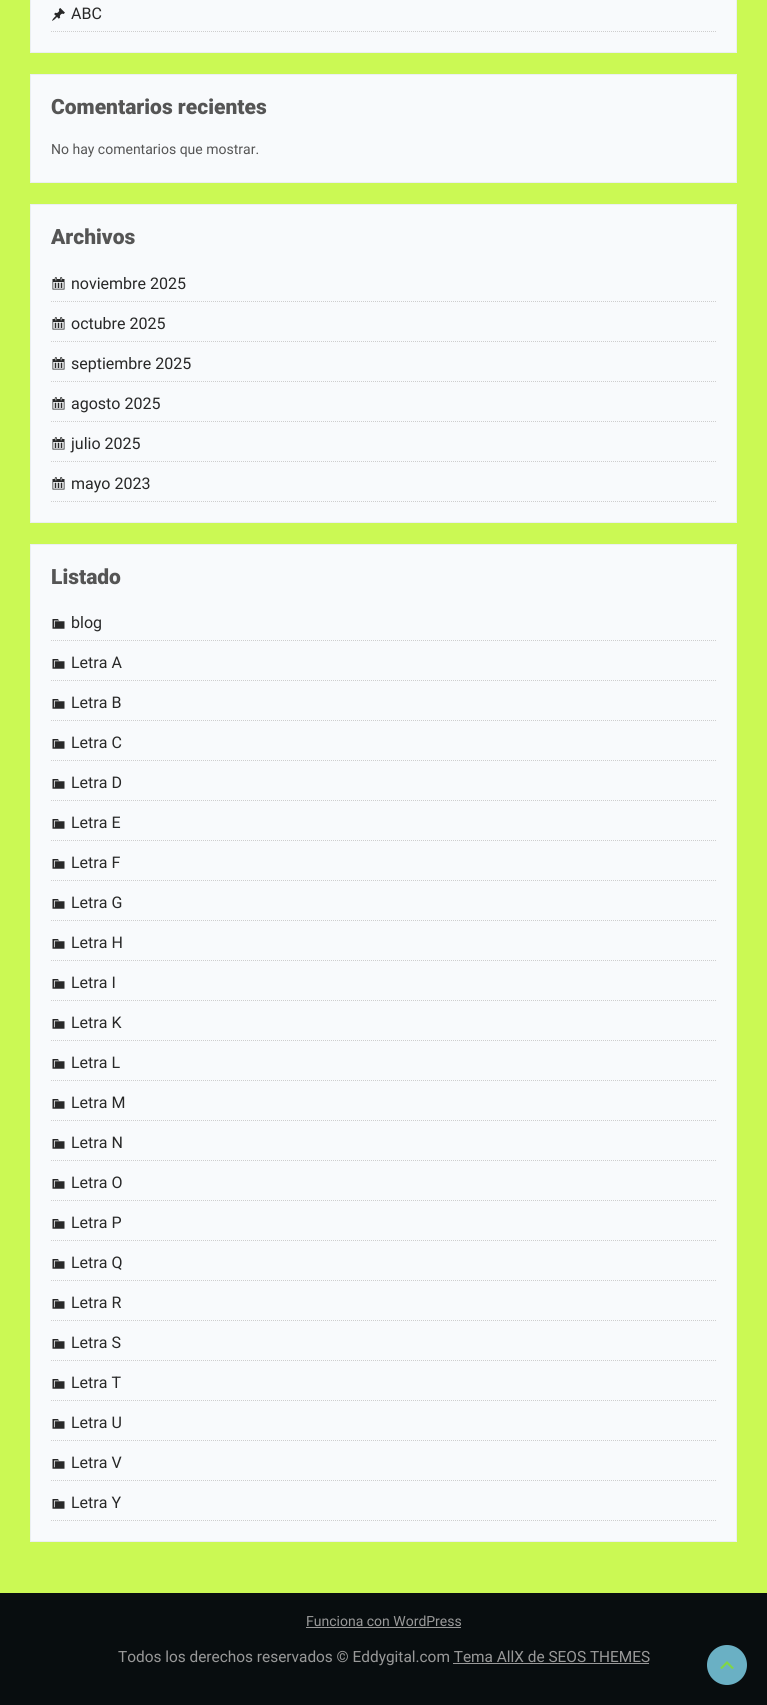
#include <cairo/cairo.h>
#include <math.h>
#include <stddef.h>

typedef struct { double x, y; const char *s; } line_t;
typedef struct { double x, y, w, h; unsigned color; } box_t;
static cairo_t *cr;

static void rgb(unsigned color)
{
	cairo_set_source_rgb(cr, (color >> 16) / 255.0, (color >> 8 & 255) / 255.0, (color & 255) / 255.0);
}

static void image(const char *path, double x, double y, double w, double h)
{
	cairo_surface_t *image = cairo_image_surface_create_from_png(path);
	cairo_save(cr);
	cairo_set_source_surface(cr, image, x, y);
	cairo_rectangle(cr, x, y, w, h);
	cairo_fill(cr);
	cairo_restore(cr);
	cairo_surface_destroy(image);
}

int main(void) {
	cairo_surface_t *surface = cairo_image_surface_create(CAIRO_FORMAT_RGB24, 767, 1705);
	cr = cairo_create(surface);
	cairo_font_options_t *options = cairo_font_options_create();
	cairo_font_options_set_hint_metrics(options, CAIRO_HINT_METRICS_OFF);
	cairo_font_options_set_hint_style(options, CAIRO_HINT_STYLE_NONE);
	cairo_set_font_options(cr, options);
	cairo_set_miter_limit(cr, 4);
	rgb(0xcbf954);
	cairo_paint(cr);
	rgb(0xf8fafc);
	cairo_rectangle(cr, 30.5, -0.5, 706, 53);
	cairo_fill_preserve(cr);
	rgb(0xebeff2);
	cairo_set_line_width(cr, 1);
	cairo_stroke(cr);
	cairo_new_path(cr);
	cairo_move_to(cr, 51, 31.5);
	cairo_line_to(cr, 716, 31.5);
	rgb(0xcecece);
	cairo_set_dash(cr, (double[]){1, 1}, 2, 0);
	cairo_stroke(cr);
	image("img/1.png", 52, 8, 13, 13);
	rgb(0xf8fafc);
	cairo_rectangle(cr, 30.5, 74.5, 706, 108);
	cairo_fill_preserve(cr);
	rgb(0xebeff2);
	cairo_set_dash(cr, NULL, 0, 0);
	cairo_stroke(cr);
	rgb(0xf8fafc);
	cairo_rectangle(cr, 30.5, 204.5, 706, 318);
	cairo_fill_preserve(cr);
	rgb(0xebeff2);
	cairo_stroke(cr);
	cairo_new_path(cr);
	cairo_move_to(cr, 51, 301.5);
	cairo_line_to(cr, 716, 301.5);
	rgb(0xcecece);
	cairo_set_dash(cr, (double[]){1, 1}, 2, 0);
	cairo_stroke(cr);
	image("img/2.png", 52, 277, 13, 13);
	cairo_new_path(cr);
	cairo_move_to(cr, 51, 341.5);
	cairo_line_to(cr, 716, 341.5);
	cairo_stroke(cr);
	image("img/2.png", 52, 317, 13, 13);
	cairo_new_path(cr);
	cairo_move_to(cr, 51, 381.5);
	cairo_line_to(cr, 716, 381.5);
	cairo_stroke(cr);
	image("img/2.png", 52, 357, 13, 13);
	cairo_new_path(cr);
	cairo_move_to(cr, 51, 421.5);
	cairo_line_to(cr, 716, 421.5);
	cairo_stroke(cr);
	image("img/2.png", 52, 397, 13, 13);
	cairo_new_path(cr);
	cairo_move_to(cr, 51, 461.5);
	cairo_line_to(cr, 716, 461.5);
	cairo_stroke(cr);
	image("img/2.png", 52, 437, 13, 13);
	cairo_new_path(cr);
	cairo_move_to(cr, 51, 501.5);
	cairo_line_to(cr, 716, 501.5);
	cairo_stroke(cr);
	image("img/2.png", 52, 477, 13, 13);
	rgb(0xf8fafc);
	cairo_rectangle(cr, 30.5, 544.5, 706, 997);
	cairo_fill_preserve(cr);
	rgb(0xebeff2);
	cairo_set_dash(cr, NULL, 0, 0);
	cairo_stroke(cr);
	cairo_new_path(cr);
	cairo_move_to(cr, 51, 640.5);
	cairo_line_to(cr, 716, 640.5);
	rgb(0xcecece);
	cairo_set_dash(cr, (double[]){1, 1}, 2, 0);
	cairo_stroke(cr);
	image("img/3.png", 52, 619, 13, 10);
	cairo_new_path(cr);
	cairo_move_to(cr, 51, 680.5);
	cairo_line_to(cr, 716, 680.5);
	cairo_stroke(cr);
	image("img/3.png", 52, 659, 13, 10);
	cairo_new_path(cr);
	cairo_move_to(cr, 51, 720.5);
	cairo_line_to(cr, 716, 720.5);
	cairo_stroke(cr);
	image("img/3.png", 52, 699, 13, 10);
	cairo_new_path(cr);
	cairo_move_to(cr, 51, 760.5);
	cairo_line_to(cr, 716, 760.5);
	cairo_stroke(cr);
	image("img/3.png", 52, 739, 13, 10);
	cairo_new_path(cr);
	cairo_move_to(cr, 51, 800.5);
	cairo_line_to(cr, 716, 800.5);
	cairo_stroke(cr);
	image("img/3.png", 52, 779, 13, 10);
	cairo_new_path(cr);
	cairo_move_to(cr, 51, 840.5);
	cairo_line_to(cr, 716, 840.5);
	cairo_stroke(cr);
	image("img/3.png", 52, 819, 13, 10);
	cairo_new_path(cr);
	cairo_move_to(cr, 51, 880.5);
	cairo_line_to(cr, 716, 880.5);
	cairo_stroke(cr);
	image("img/3.png", 52, 859, 13, 10);
	cairo_new_path(cr);
	cairo_move_to(cr, 51, 920.5);
	cairo_line_to(cr, 716, 920.5);
	cairo_stroke(cr);
	image("img/3.png", 52, 899, 13, 10);
	cairo_new_path(cr);
	cairo_move_to(cr, 51, 960.5);
	cairo_line_to(cr, 716, 960.5);
	cairo_stroke(cr);
	image("img/3.png", 52, 939, 13, 10);
	cairo_new_path(cr);
	cairo_move_to(cr, 51, 1000.5);
	cairo_line_to(cr, 716, 1000.5);
	cairo_stroke(cr);
	image("img/3.png", 52, 979, 13, 10);
	cairo_new_path(cr);
	cairo_move_to(cr, 51, 1040.5);
	cairo_line_to(cr, 716, 1040.5);
	cairo_stroke(cr);
	image("img/3.png", 52, 1019, 13, 10);
	cairo_new_path(cr);
	cairo_move_to(cr, 51, 1080.5);
	cairo_line_to(cr, 716, 1080.5);
	cairo_stroke(cr);
	image("img/3.png", 52, 1059, 13, 10);
	cairo_new_path(cr);
	cairo_move_to(cr, 51, 1120.5);
	cairo_line_to(cr, 716, 1120.5);
	cairo_stroke(cr);
	image("img/3.png", 52, 1099, 13, 10);
	cairo_new_path(cr);
	cairo_move_to(cr, 51, 1160.5);
	cairo_line_to(cr, 716, 1160.5);
	cairo_stroke(cr);
	image("img/3.png", 52, 1139, 13, 10);
	cairo_new_path(cr);
	cairo_move_to(cr, 51, 1200.5);
	cairo_line_to(cr, 716, 1200.5);
	cairo_stroke(cr);
	image("img/3.png", 52, 1179, 13, 10);
	cairo_new_path(cr);
	cairo_move_to(cr, 51, 1240.5);
	cairo_line_to(cr, 716, 1240.5);
	cairo_stroke(cr);
	image("img/3.png", 52, 1219, 13, 10);
	cairo_new_path(cr);
	cairo_move_to(cr, 51, 1280.5);
	cairo_line_to(cr, 716, 1280.5);
	cairo_stroke(cr);
	image("img/3.png", 52, 1259, 13, 10);
	cairo_new_path(cr);
	cairo_move_to(cr, 51, 1320.5);
	cairo_line_to(cr, 716, 1320.5);
	cairo_stroke(cr);
	image("img/3.png", 52, 1299, 13, 10);
	cairo_new_path(cr);
	cairo_move_to(cr, 51, 1360.5);
	cairo_line_to(cr, 716, 1360.5);
	cairo_stroke(cr);
	image("img/3.png", 52, 1339, 13, 10);
	cairo_new_path(cr);
	cairo_move_to(cr, 51, 1400.5);
	cairo_line_to(cr, 716, 1400.5);
	cairo_stroke(cr);
	image("img/3.png", 52, 1379, 13, 10);
	cairo_new_path(cr);
	cairo_move_to(cr, 51, 1440.5);
	cairo_line_to(cr, 716, 1440.5);
	cairo_stroke(cr);
	image("img/3.png", 52, 1419, 13, 10);
	cairo_new_path(cr);
	cairo_move_to(cr, 51, 1480.5);
	cairo_line_to(cr, 716, 1480.5);
	cairo_stroke(cr);
	image("img/3.png", 52, 1459, 13, 10);
	cairo_new_path(cr);
	cairo_move_to(cr, 51, 1520.5);
	cairo_line_to(cr, 716, 1520.5);
	cairo_stroke(cr);
	image("img/3.png", 52, 1499, 13, 10);
	{
		static const box_t items[] = {
			{0, 1593, 767, 112, 0x080d0f},
			{306, 1627, 155, 1, 0x999999},
			{453, 1663, 196, 1, 0x999999},
		};
		for (size_t i = 0; i < sizeof items / sizeof *items; i++) {
			rgb(items[i].color);
			cairo_rectangle(cr, items[i].x, items[i].y, items[i].w, items[i].h);
			cairo_fill(cr);
		}
	}
	rgb(0x6ab0c4);
	cairo_arc(cr, 727, 1665, 20, 0, 2 * M_PI);
	cairo_fill(cr);
	image("img/4.png", 720, 1661, 14, 8);
	cairo_select_font_face(cr, "Roboto", CAIRO_FONT_SLANT_NORMAL, CAIRO_FONT_WEIGHT_NORMAL);
	cairo_set_font_size(cr, 16);
	rgb(0x282828);
	cairo_move_to(cr, 71, 19);
	cairo_show_text(cr, "ABC");
	cairo_select_font_face(cr, "Roboto Black", CAIRO_FONT_SLANT_NORMAL, CAIRO_FONT_WEIGHT_NORMAL);
	cairo_set_font_size(cr, 21);
	rgb(0x555555);
	cairo_move_to(cr, 51, 114);
	cairo_show_text(cr, "Comentarios recientes");
	cairo_select_font_face(cr, "Roboto", CAIRO_FONT_SLANT_NORMAL, CAIRO_FONT_WEIGHT_NORMAL);
	cairo_set_font_size(cr, 14);
	cairo_move_to(cr, 51, 154);
	cairo_show_text(cr, "No hay comentarios que mostrar.");
	cairo_select_font_face(cr, "Roboto Black", CAIRO_FONT_SLANT_NORMAL, CAIRO_FONT_WEIGHT_NORMAL);
	cairo_set_font_size(cr, 21);
	cairo_move_to(cr, 51, 244);
	cairo_show_text(cr, "Archivos");
	cairo_select_font_face(cr, "Roboto", CAIRO_FONT_SLANT_NORMAL, CAIRO_FONT_WEIGHT_NORMAL);
	cairo_set_font_size(cr, 16);
	rgb(0x282828);
	{
		static const line_t items[] = {
			{71, 289, "noviembre 2025"},
			{71, 329, "octubre 2025"},
			{71, 369, "septiembre 2025"},
			{71, 409, "agosto 2025"},
			{71, 449, "julio 2025"},
			{71, 489, "mayo 2023"},
		};
		for (size_t i = 0; i < sizeof items / sizeof *items; i++) {
			cairo_move_to(cr, items[i].x, items[i].y);
			cairo_show_text(cr, items[i].s);
		}
	}
	cairo_select_font_face(cr, "Roboto Black", CAIRO_FONT_SLANT_NORMAL, CAIRO_FONT_WEIGHT_NORMAL);
	cairo_set_font_size(cr, 21);
	rgb(0x555555);
	cairo_move_to(cr, 51, 584);
	cairo_show_text(cr, "Listado");
	cairo_select_font_face(cr, "Roboto", CAIRO_FONT_SLANT_NORMAL, CAIRO_FONT_WEIGHT_NORMAL);
	cairo_set_font_size(cr, 16);
	rgb(0x282828);
	{
		static const line_t items[] = {
			{71, 628, "blog"},
			{71, 668, "Letra A"},
			{71, 708, "Letra B"},
			{71, 748, "Letra C"},
			{71, 788, "Letra D"},
			{71, 828, "Letra E"},
			{71, 868, "Letra F"},
			{71, 908, "Letra G"},
			{71, 948, "Letra H"},
			{71, 988, "Letra I"},
			{71, 1028, "Letra K"},
			{71, 1068, "Letra L"},
			{71, 1108, "Letra M"},
			{71, 1148, "Letra N"},
			{71, 1188, "Letra O"},
			{71, 1228, "Letra P"},
			{71, 1268, "Letra Q"},
			{71, 1308, "Letra R"},
			{71, 1348, "Letra S"},
			{71, 1388, "Letra T"},
			{71, 1428, "Letra U"},
			{71, 1468, "Letra V"},
			{71, 1508, "Letra Y"},
		};
		for (size_t i = 0; i < sizeof items / sizeof *items; i++) {
			cairo_move_to(cr, items[i].x, items[i].y);
			cairo_show_text(cr, items[i].s);
		}
	}
	cairo_set_font_size(cr, 14);
	rgb(0x999999);
	cairo_move_to(cr, 306, 1626);
	cairo_show_text(cr, "Funciona con WordPress");
	cairo_set_font_size(cr, 15.4);
	cairo_move_to(cr, 118, 1662);
	cairo_show_text(cr, "Todos los derechos reservados © Eddygital.com Tema AllX de SEOS THEMES");
	cairo_surface_write_to_png(surface, "page.png");
	cairo_font_options_destroy(options);
	cairo_destroy(cr);
	cairo_surface_destroy(surface);
	return 0;
}
